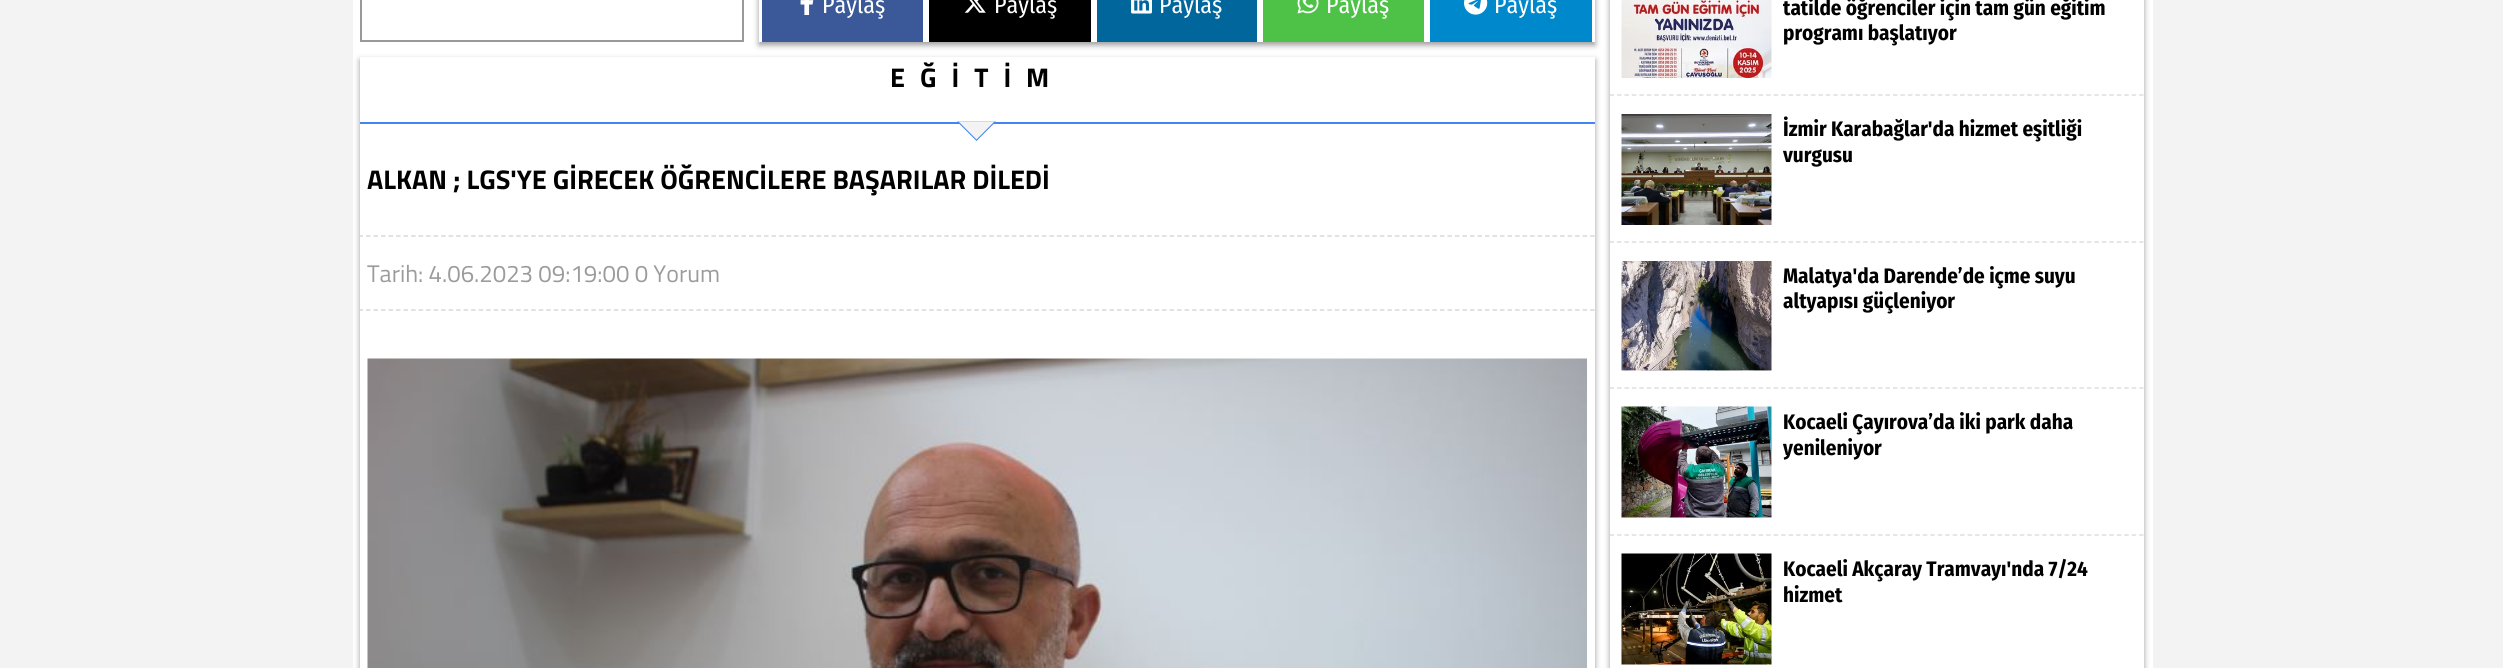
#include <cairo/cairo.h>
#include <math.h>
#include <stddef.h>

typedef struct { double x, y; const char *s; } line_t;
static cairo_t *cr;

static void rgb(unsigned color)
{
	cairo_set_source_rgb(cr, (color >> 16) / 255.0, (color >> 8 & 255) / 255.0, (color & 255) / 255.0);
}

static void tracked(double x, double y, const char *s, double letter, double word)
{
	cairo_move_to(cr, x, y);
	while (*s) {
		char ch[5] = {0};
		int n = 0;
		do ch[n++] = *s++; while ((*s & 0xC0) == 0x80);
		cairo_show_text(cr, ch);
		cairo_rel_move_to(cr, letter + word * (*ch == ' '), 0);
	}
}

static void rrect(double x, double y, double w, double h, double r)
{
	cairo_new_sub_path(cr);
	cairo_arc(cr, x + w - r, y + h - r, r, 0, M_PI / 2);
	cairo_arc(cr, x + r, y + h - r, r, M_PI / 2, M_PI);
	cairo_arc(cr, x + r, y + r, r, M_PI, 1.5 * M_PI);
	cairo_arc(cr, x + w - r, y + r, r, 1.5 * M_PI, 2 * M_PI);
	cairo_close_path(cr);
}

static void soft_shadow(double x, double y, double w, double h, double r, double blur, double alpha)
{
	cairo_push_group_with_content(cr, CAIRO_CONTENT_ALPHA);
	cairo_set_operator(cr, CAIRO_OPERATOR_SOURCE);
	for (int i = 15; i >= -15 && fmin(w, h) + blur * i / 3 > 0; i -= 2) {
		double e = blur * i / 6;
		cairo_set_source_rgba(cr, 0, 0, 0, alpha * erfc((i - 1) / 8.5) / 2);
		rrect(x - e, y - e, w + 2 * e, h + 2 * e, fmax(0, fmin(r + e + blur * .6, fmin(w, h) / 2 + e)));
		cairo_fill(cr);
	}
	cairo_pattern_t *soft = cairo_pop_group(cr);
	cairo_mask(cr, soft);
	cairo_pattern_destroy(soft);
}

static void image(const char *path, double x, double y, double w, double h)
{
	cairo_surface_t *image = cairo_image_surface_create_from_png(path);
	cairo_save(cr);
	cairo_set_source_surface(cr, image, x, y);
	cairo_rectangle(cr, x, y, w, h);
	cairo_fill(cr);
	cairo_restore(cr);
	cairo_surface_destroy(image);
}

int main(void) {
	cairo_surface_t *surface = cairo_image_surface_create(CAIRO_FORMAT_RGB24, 2503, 668);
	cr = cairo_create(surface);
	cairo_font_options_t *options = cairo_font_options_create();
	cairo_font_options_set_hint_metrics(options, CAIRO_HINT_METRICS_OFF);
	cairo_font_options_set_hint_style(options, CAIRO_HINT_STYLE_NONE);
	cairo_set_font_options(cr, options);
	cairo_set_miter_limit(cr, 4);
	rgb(0xf3f3f3);
	cairo_paint(cr);
	rgb(0xffffff);
	cairo_rectangle(cr, 353, 0, 1800, 668);
	cairo_fill(cr);
	cairo_rectangle(cr, 361, -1, 382, 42);
	rgb(0x999999);
	cairo_stroke(cr);
	cairo_save(cr);
	cairo_set_fill_rule(cr, CAIRO_FILL_RULE_EVEN_ODD);
	cairo_new_path(cr);
	cairo_move_to(cr, 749, 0);
	cairo_line_to(cr, 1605, 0);
	cairo_line_to(cr, 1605, 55);
	cairo_line_to(cr, 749, 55);
	cairo_close_path(cr);
	cairo_move_to(cr, 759, -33);
	cairo_line_to(cr, 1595, -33);
	cairo_line_to(cr, 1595, 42);
	cairo_line_to(cr, 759, 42);
	cairo_close_path(cr);
	cairo_clip(cr);
	rgb(0x000000);
	soft_shadow(759, -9, 836, 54, 0, 3, 0.4);
	cairo_restore(cr);
	rgb(0x3b5998);
	cairo_rectangle(cr, 762, 0, 161, 42);
	cairo_fill(cr);
	image("img/1.png", 800, 0, 14, 15);
	rgb(0x000000);
	cairo_rectangle(cr, 929, 0, 162, 42);
	cairo_fill(cr);
	image("img/2.png", 964, 0, 22, 13);
	rgb(0x01669b);
	cairo_rectangle(cr, 1097, 0, 160, 42);
	cairo_fill(cr);
	image("img/3.png", 1131, 0, 21, 14);
	rgb(0x4dc247);
	cairo_rectangle(cr, 1263, 0, 161, 42);
	cairo_fill(cr);
	image("img/4.png", 1297, 0, 22, 14);
	rgb(0x0088cc);
	cairo_rectangle(cr, 1430, 0, 162, 42);
	cairo_fill(cr);
	image("img/5.png", 1464, 0, 24, 15);
	rgb(0x000000);
	soft_shadow(1610, -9, 534, 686, 0, 3, 0.4);
	rgb(0xffffff);
	cairo_rectangle(cr, 1610, 0, 534, 668);
	cairo_fill(cr);
	image("img/6.png", 1621, 0, 151, 78);
	cairo_new_path(cr);
	cairo_move_to(cr, 1609.5, 95);
	cairo_line_to(cr, 2143.5, 95);
	rgb(0xdedede);
	cairo_set_line_width(cr, 1.5);
	cairo_set_dash(cr, (double[]){4.5, 2.96}, 2, 0);
	cairo_stroke(cr);
	image("img/7.png", 1621, 114, 151, 111);
	cairo_new_path(cr);
	cairo_move_to(cr, 1609.5, 242);
	cairo_line_to(cr, 2143.5, 242);
	cairo_stroke(cr);
	image("img/8.png", 1621, 261, 151, 110);
	cairo_new_path(cr);
	cairo_move_to(cr, 1609.5, 388);
	cairo_line_to(cr, 2143.5, 388);
	cairo_stroke(cr);
	image("img/9.png", 1621, 406, 151, 112);
	cairo_new_path(cr);
	cairo_move_to(cr, 1609.5, 535);
	cairo_line_to(cr, 2143.5, 535);
	cairo_stroke(cr);
	image("img/10.png", 1621, 553, 151, 112);
	rgb(0x000000);
	soft_shadow(360, 60, 1235, 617, 0, 3, 0.4);
	rgb(0xffffff);
	cairo_rectangle(cr, 360, 57, 1235, 611);
	cairo_fill(cr);
	rgb(0x4285f4);
	cairo_rectangle(cr, 360, 122, 1235, 2);
	cairo_fill(cr);
	cairo_new_path(cr);
	cairo_move_to(cr, 957, 121.5);
	cairo_line_to(cr, 996, 121.5);
	cairo_line_to(cr, 976.5, 141);
	cairo_close_path(cr);
	cairo_fill(cr);
	rgb(0xf3f3f3);
	cairo_new_path(cr);
	cairo_move_to(cr, 958.5, 121.5);
	cairo_line_to(cr, 994.5, 121.5);
	cairo_line_to(cr, 976.5, 139.5);
	cairo_close_path(cr);
	cairo_fill(cr);
	cairo_save(cr);
	cairo_rectangle(cr, 360, 57, 1235, 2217);
	cairo_clip(cr);
	cairo_new_path(cr);
	cairo_move_to(cr, 358.5, 236);
	cairo_line_to(cr, 1596, 236);
	rgb(0xd8d8d8);
	cairo_set_dash(cr, (double[]){4.5, 3.01}, 2, 0);
	cairo_stroke(cr);
	cairo_new_path(cr);
	cairo_move_to(cr, 358.5, 310);
	cairo_line_to(cr, 1596, 310);
	cairo_stroke(cr);
	cairo_restore(cr);
	image("img/11.png", 367, 358, 1220, 310);
	cairo_select_font_face(cr, "Fira Sans Condensed", CAIRO_FONT_SLANT_NORMAL, CAIRO_FONT_WEIGHT_NORMAL);
	cairo_set_font_size(cr, 24);
	rgb(0xffffff);
	{
		static const line_t items[] = {
			{822, 13, "Paylaş"},
			{994, 13, "Paylaş"},
			{1159, 13, "Paylaş"},
			{1326, 13, "Paylaş"},
			{1494, 13, "Paylaş"},
		};
		for (size_t i = 0; i < sizeof items / sizeof *items; i++) {
			cairo_move_to(cr, items[i].x, items[i].y);
			cairo_show_text(cr, items[i].s);
		}
	}
	cairo_select_font_face(cr, "Fira Sans Condensed", CAIRO_FONT_SLANT_NORMAL, CAIRO_FONT_WEIGHT_BOLD);
	cairo_set_font_size(cr, 21);
	rgb(0x000000);
	{
		static const line_t items[] = {
			{1783, 15, "tatilde öğrenciler için tam gün eğitim"},
			{1783, 40, "programı başlatıyor"},
			{1783, 136, "İzmir Karabağlar'da hizmet eşitliği"},
			{1783, 162, "vurgusu"},
			{1783, 283, "Malatya'da Darende’de içme suyu"},
			{1783, 308, "altyapısı güçleniyor"},
			{1783, 429, "Kocaeli Çayırova’da iki park daha"},
			{1783, 455, "yenileniyor"},
			{1783, 576, "Kocaeli Akçaray Tramvayı'nda 7/24"},
			{1783, 602, "hizmet"},
		};
		for (size_t i = 0; i < sizeof items / sizeof *items; i++) {
			cairo_move_to(cr, items[i].x, items[i].y);
			cairo_show_text(cr, items[i].s);
		}
	}
	cairo_select_font_face(cr, "Titillium Web", CAIRO_FONT_SLANT_NORMAL, CAIRO_FONT_WEIGHT_BOLD);
	cairo_set_font_size(cr, 27);
	tracked(890, 87, "EĞİTİM", 15, 0);
	cairo_move_to(cr, 367, 189);
	cairo_show_text(cr, "ALKAN ; LGS'YE GİRECEK ÖĞRENCİLERE BAŞARILAR DİLEDİ");
	cairo_select_font_face(cr, "Titillium Web", CAIRO_FONT_SLANT_NORMAL, CAIRO_FONT_WEIGHT_NORMAL);
	cairo_set_font_size(cr, 24);
	rgb(0x9b9b9b);
	cairo_move_to(cr, 367, 282);
	cairo_show_text(cr, "Tarih: 4.06.2023 09:19:00 0 Yorum");
	cairo_surface_write_to_png(surface, "page.png");
	cairo_font_options_destroy(options);
	cairo_destroy(cr);
	cairo_surface_destroy(surface);
	return 0;
}
